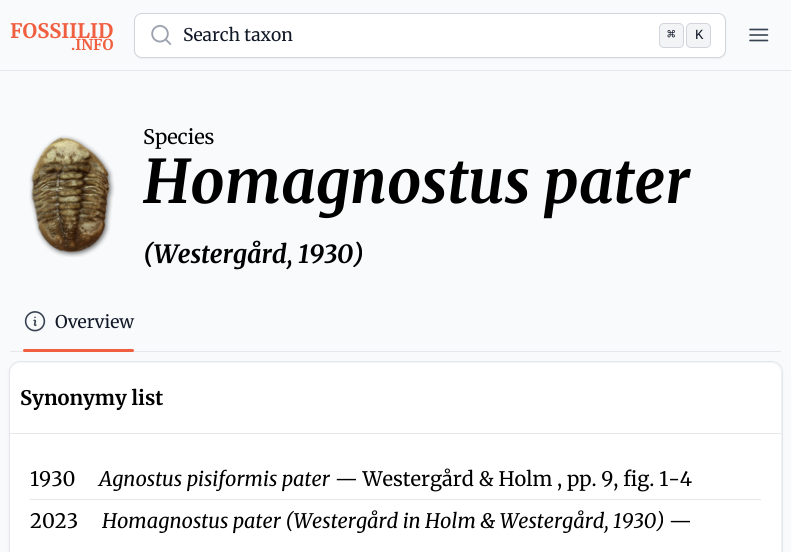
#include <cairo/cairo.h>
#include <math.h>
#include <stddef.h>

static cairo_t *cr;

static void rgb(unsigned color)
{
	cairo_set_source_rgb(cr, (color >> 16) / 255.0, (color >> 8 & 255) / 255.0, (color & 255) / 255.0);
}

static void rrect(double x, double y, double w, double h, double r)
{
	cairo_new_sub_path(cr);
	cairo_arc(cr, x + w - r, y + h - r, r, 0, M_PI / 2);
	cairo_arc(cr, x + r, y + h - r, r, M_PI / 2, M_PI);
	cairo_arc(cr, x + r, y + r, r, M_PI, 1.5 * M_PI);
	cairo_arc(cr, x + w - r, y + r, r, 1.5 * M_PI, 2 * M_PI);
	cairo_close_path(cr);
}

static void soft_shadow(double x, double y, double w, double h, double r, double blur, double alpha)
{
	cairo_push_group_with_content(cr, CAIRO_CONTENT_ALPHA);
	cairo_set_operator(cr, CAIRO_OPERATOR_SOURCE);
	for (int i = 15; i >= -15 && fmin(w, h) + blur * i / 3 > 0; i -= 2) {
		double e = blur * i / 6;
		cairo_set_source_rgba(cr, 0, 0, 0, alpha * erfc((i - 1) / 8.5) / 2);
		rrect(x - e, y - e, w + 2 * e, h + 2 * e, fmax(0, fmin(r + e + blur * .6, fmin(w, h) / 2 + e)));
		cairo_fill(cr);
	}
	cairo_pattern_t *soft = cairo_pop_group(cr);
	cairo_mask(cr, soft);
	cairo_pattern_destroy(soft);
}

static void image(const char *path, double x, double y, double w, double h)
{
	cairo_surface_t *image = cairo_image_surface_create_from_png(path);
	cairo_save(cr);
	cairo_set_source_surface(cr, image, x, y);
	cairo_rectangle(cr, x, y, w, h);
	cairo_fill(cr);
	cairo_restore(cr);
	cairo_surface_destroy(image);
}

int main(void) {
	cairo_surface_t *surface = cairo_image_surface_create(CAIRO_FORMAT_RGB24, 791, 552);
	cr = cairo_create(surface);
	cairo_font_options_t *options = cairo_font_options_create();
	cairo_font_options_set_hint_metrics(options, CAIRO_HINT_METRICS_OFF);
	cairo_font_options_set_hint_style(options, CAIRO_HINT_STYLE_NONE);
	cairo_set_font_options(cr, options);
	cairo_set_miter_limit(cr, 4);
	rgb(0xf9fafb);
	cairo_paint(cr);
	rgb(0xe5e7eb);
	cairo_rectangle(cr, 0, 70, 791, 1);
	cairo_fill(cr);
	rgb(0x000000);
	soft_shadow(134, 14, 592, 45, 8, 1, 0.05);
	rgb(0xffffff);
	rrect(134.5, 13.5, 591, 44, 7.5);
	cairo_fill_preserve(cr);
	rgb(0xd1d5db);
	cairo_set_line_width(cr, 1);
	cairo_stroke(cr);
	image("img/1.png", 151, 25, 21, 20);
	rgb(0xf3f4f6);
	rrect(659.5, 23.5, 24, 24, 4.5);
	cairo_fill_preserve(cr);
	rgb(0xd1d5db);
	cairo_stroke(cr);
	rgb(0xf3f4f6);
	rrect(686.5, 23.5, 24, 24, 4.5);
	cairo_fill_preserve(cr);
	rgb(0xd1d5db);
	cairo_stroke(cr);
	cairo_new_path(cr);
	cairo_move_to(cr, 750, 29.5);
	cairo_line_to(cr, 767.5, 29.5);
	cairo_move_to(cr, 750, 35);
	cairo_line_to(cr, 767.5, 35);
	cairo_move_to(cr, 750, 40.5);
	cairo_line_to(cr, 767.5, 40.5);
	rgb(0x374151);
	cairo_set_line_width(cr, 1.6);
	cairo_set_line_cap(cr, CAIRO_LINE_CAP_ROUND);
	cairo_set_line_join(cr, CAIRO_LINE_JOIN_ROUND);
	cairo_stroke(cr);
	image("img/2.png", 29, 135, 86, 122);
	rgb(0xe5e7eb);
	cairo_rectangle(cr, 10, 351, 771, 1);
	cairo_fill(cr);
	image("img/3.png", 24, 311, 22, 21);
	rgb(0xf05f40);
	rrect(23, 349, 111, 3, 1.5);
	cairo_fill(cr);
	rgb(0x000000);
	soft_shadow(10, 364, 771, 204, 10, 2, 0.1);
	rrect(9.5, 361.5, 773, 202, 10.5);
	rgb(0xe5e7eb);
	cairo_set_line_width(cr, 1);
	cairo_set_line_cap(cr, CAIRO_LINE_CAP_BUTT);
	cairo_set_line_join(cr, CAIRO_LINE_JOIN_MITER);
	cairo_stroke(cr);
	rgb(0xffffff);
	rrect(10, 363, 771, 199, 10);
	cairo_fill(cr);
	rgb(0xe5e7eb);
	cairo_rectangle(cr, 10, 433, 771, 1);
	cairo_fill(cr);
	cairo_rectangle(cr, 30, 499, 731, 1);
	cairo_fill(cr);
	cairo_select_font_face(cr, "Merriweather", CAIRO_FONT_SLANT_NORMAL, CAIRO_FONT_WEIGHT_BOLD);
	cairo_set_font_size(cr, 20);
	rgb(0xf05f40);
	cairo_move_to(cr, 10, 38);
	cairo_show_text(cr, "FOSSIILID");
	cairo_set_font_size(cr, 15);
	cairo_move_to(cr, 71, 50);
	cairo_show_text(cr, ".INFO");
	cairo_select_font_face(cr, "Merriweather", CAIRO_FONT_SLANT_NORMAL, CAIRO_FONT_WEIGHT_NORMAL);
	cairo_set_font_size(cr, 17.5);
	rgb(0x111827);
	cairo_move_to(cr, 183, 41);
	cairo_show_text(cr, "Search taxon");
	cairo_select_font_face(cr, "DejaVu Sans Mono", CAIRO_FONT_SLANT_NORMAL, CAIRO_FONT_WEIGHT_NORMAL);
	cairo_set_font_size(cr, 14);
	cairo_move_to(cr, 667, 39);
	cairo_show_text(cr, "⌘");
	cairo_select_font_face(cr, "Liberation Mono", CAIRO_FONT_SLANT_NORMAL, CAIRO_FONT_WEIGHT_NORMAL);
	cairo_move_to(cr, 695, 39);
	cairo_show_text(cr, "K");
	cairo_select_font_face(cr, "Merriweather", CAIRO_FONT_SLANT_NORMAL, CAIRO_FONT_WEIGHT_NORMAL);
	cairo_set_font_size(cr, 20);
	rgb(0x000000);
	cairo_move_to(cr, 143, 144);
	cairo_show_text(cr, "Species");
	cairo_select_font_face(cr, "Merriweather", CAIRO_FONT_SLANT_ITALIC, CAIRO_FONT_WEIGHT_BOLD);
	cairo_set_font_size(cr, 60);
	cairo_move_to(cr, 143, 203);
	cairo_show_text(cr, "Homagnostus pater");
	cairo_set_font_size(cr, 25);
	cairo_move_to(cr, 143, 263);
	cairo_show_text(cr, "(Westergård, 1930)");
	cairo_select_font_face(cr, "Merriweather", CAIRO_FONT_SLANT_NORMAL, CAIRO_FONT_WEIGHT_NORMAL);
	cairo_set_font_size(cr, 17.5);
	rgb(0x111827);
	cairo_move_to(cr, 55, 328);
	cairo_show_text(cr, "Overview");
	cairo_select_font_face(cr, "Merriweather", CAIRO_FONT_SLANT_NORMAL, CAIRO_FONT_WEIGHT_BOLD);
	cairo_set_font_size(cr, 20);
	rgb(0x000000);
	cairo_move_to(cr, 20, 405);
	cairo_show_text(cr, "Synonymy list");
	cairo_select_font_face(cr, "Merriweather", CAIRO_FONT_SLANT_NORMAL, CAIRO_FONT_WEIGHT_NORMAL);
	cairo_move_to(cr, 30, 486);
	cairo_show_text(cr, "1930");
	cairo_select_font_face(cr, "Merriweather", CAIRO_FONT_SLANT_ITALIC, CAIRO_FONT_WEIGHT_NORMAL);
	cairo_move_to(cr, 99, 486);
	cairo_show_text(cr, "Agnostus pisiformis pater");
	cairo_select_font_face(cr, "Merriweather", CAIRO_FONT_SLANT_NORMAL, CAIRO_FONT_WEIGHT_NORMAL);
	cairo_move_to(cr, 335, 486);
	cairo_show_text(cr, "— Westergård & Holm , pp. 9, fig. 1-4");
	cairo_move_to(cr, 30, 528);
	cairo_show_text(cr, "2023");
	cairo_select_font_face(cr, "Merriweather", CAIRO_FONT_SLANT_ITALIC, CAIRO_FONT_WEIGHT_NORMAL);
	cairo_move_to(cr, 102, 528);
	cairo_show_text(cr, "Homagnostus pater (Westergård in Holm & Westergård, 1930)");
	cairo_select_font_face(cr, "Merriweather", CAIRO_FONT_SLANT_NORMAL, CAIRO_FONT_WEIGHT_NORMAL);
	cairo_move_to(cr, 669, 528);
	cairo_show_text(cr, "—");
	cairo_surface_write_to_png(surface, "page.png");
	cairo_font_options_destroy(options);
	cairo_destroy(cr);
	cairo_surface_destroy(surface);
	return 0;
}
